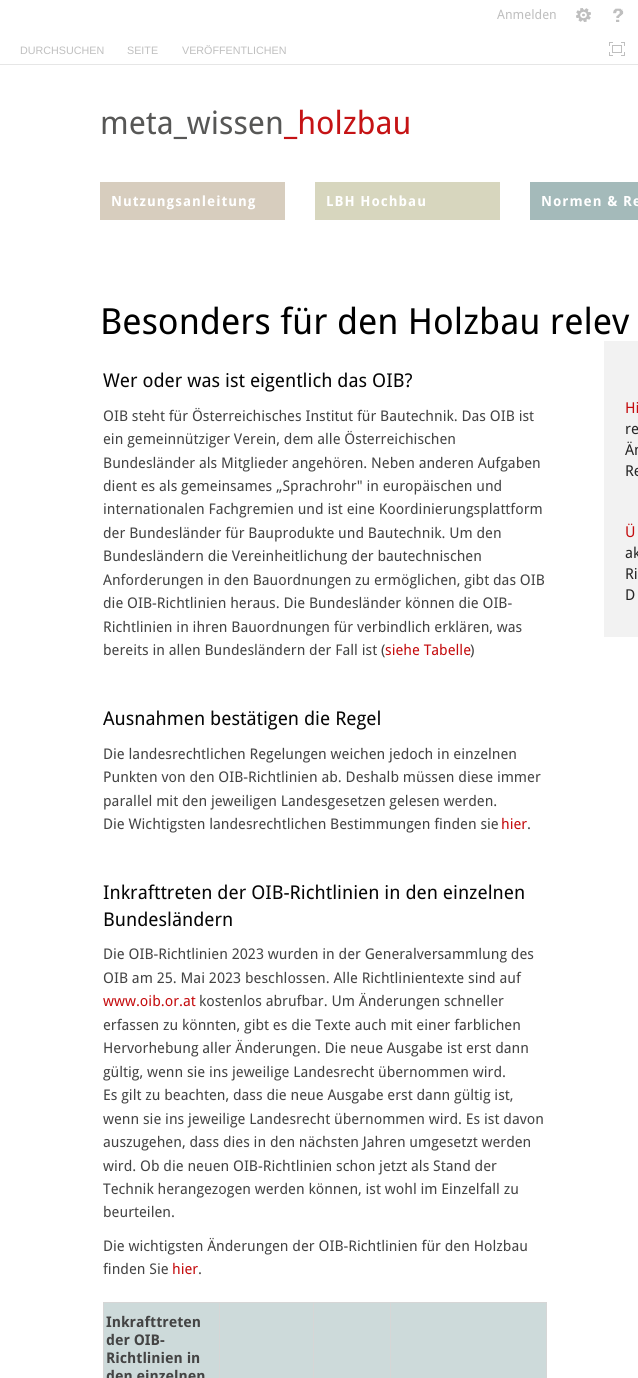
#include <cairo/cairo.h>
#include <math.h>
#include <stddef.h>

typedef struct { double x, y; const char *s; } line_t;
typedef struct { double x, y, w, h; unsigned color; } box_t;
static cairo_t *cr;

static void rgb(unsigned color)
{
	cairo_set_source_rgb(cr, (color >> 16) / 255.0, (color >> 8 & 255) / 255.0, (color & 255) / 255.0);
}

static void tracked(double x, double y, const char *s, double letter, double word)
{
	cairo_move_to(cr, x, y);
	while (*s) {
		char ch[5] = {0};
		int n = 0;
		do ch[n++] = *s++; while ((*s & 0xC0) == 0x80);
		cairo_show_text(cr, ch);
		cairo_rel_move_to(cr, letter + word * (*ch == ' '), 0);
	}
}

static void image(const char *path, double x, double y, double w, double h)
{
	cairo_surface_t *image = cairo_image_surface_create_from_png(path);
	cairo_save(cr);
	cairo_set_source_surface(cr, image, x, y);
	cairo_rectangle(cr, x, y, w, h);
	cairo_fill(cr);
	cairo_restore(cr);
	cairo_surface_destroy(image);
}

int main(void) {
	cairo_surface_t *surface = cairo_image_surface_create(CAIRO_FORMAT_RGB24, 638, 1378);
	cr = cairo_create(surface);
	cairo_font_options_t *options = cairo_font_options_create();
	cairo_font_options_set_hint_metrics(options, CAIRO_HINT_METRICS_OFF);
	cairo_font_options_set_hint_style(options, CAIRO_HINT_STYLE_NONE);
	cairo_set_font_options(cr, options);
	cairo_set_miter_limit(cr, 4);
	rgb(0xffffff);
	cairo_paint(cr);
	image("img/1.png", 576, 8, 15, 14);
	image("img/2.png", 613, 8, 11, 14);
	rgb(0xe6e6e6);
	cairo_rectangle(cr, 0, 64, 638, 1);
	cairo_fill(cr);
	image("img/3.png", 609, 42, 16, 14);
	{
		static const box_t items[] = {
			{100, 182, 185, 38, 0xd7cdbe},
			{315, 182, 185, 38, 0xd7d6be},
			{530, 182, 108, 38, 0xa4baba},
			{104, 1303, 442, 75, 0xcddada},
			{103, 1302, 444, 1, 0xd6d6d6},
			{546, 1302, 1, 76, 0xd6d6d6},
			{103, 1302, 1, 76, 0xd6d6d6},
			{219, 1302, 1, 76, 0xd6d6d6},
			{313, 1302, 1, 76, 0xd6d6d6},
			{390, 1302, 1, 76, 0xd6d6d6},
			{604, 341, 34, 296, 0xf2f2f2},
		};
		for (size_t i = 0; i < sizeof items / sizeof *items; i++) {
			rgb(items[i].color);
			cairo_rectangle(cr, items[i].x, items[i].y, items[i].w, items[i].h);
			cairo_fill(cr);
		}
	}
	cairo_select_font_face(cr, "Droid Sans", CAIRO_FONT_SLANT_NORMAL, CAIRO_FONT_WEIGHT_NORMAL);
	cairo_set_font_size(cr, 13);
	rgb(0xbfbfbf);
	cairo_move_to(cr, 497, 19);
	cairo_show_text(cr, "Anmelden");
	cairo_select_font_face(cr, "Liberation Sans", CAIRO_FONT_SLANT_NORMAL, CAIRO_FONT_WEIGHT_NORMAL);
	cairo_set_font_size(cr, 10.75);
	{
		static const line_t items[] = {
			{20, 54, "DURCHSUCHEN"},
			{127, 54, "SEITE"},
			{182, 54, "VERÖFFENTLICHEN"},
		};
		for (size_t i = 0; i < sizeof items / sizeof *items; i++) {
			cairo_move_to(cr, items[i].x, items[i].y);
			cairo_show_text(cr, items[i].s);
		}
	}
	cairo_select_font_face(cr, "Droid Sans", CAIRO_FONT_SLANT_NORMAL, CAIRO_FONT_WEIGHT_NORMAL);
	cairo_set_font_size(cr, 32);
	rgb(0x575756);
	cairo_move_to(cr, 100, 134);
	cairo_show_text(cr, "meta_wissen");
	rgb(0xc51315);
	cairo_move_to(cr, 284, 134);
	cairo_show_text(cr, "_holzbau");
	cairo_select_font_face(cr, "Droid Sans", CAIRO_FONT_SLANT_NORMAL, CAIRO_FONT_WEIGHT_BOLD);
	cairo_set_font_size(cr, 14);
	rgb(0xffffff);
	{
		static const line_t items[] = {
			{111, 206, "Nutzungsanleitung"},
			{326, 206, "LBH Hochbau"},
			{541, 206, "Normen & Re"},
		};
		for (size_t i = 0; i < sizeof items / sizeof *items; i++) {
			tracked(items[i].x, items[i].y, items[i].s, 1, 0);
		}
	}
	cairo_select_font_face(cr, "Droid Sans", CAIRO_FONT_SLANT_NORMAL, CAIRO_FONT_WEIGHT_NORMAL);
	cairo_set_font_size(cr, 36);
	rgb(0x000000);
	cairo_move_to(cr, 100, 334);
	cairo_show_text(cr, "Besonders für den Holzbau relev");
	cairo_set_font_size(cr, 19);
	rgb(0x060606);
	cairo_move_to(cr, 103, 387);
	cairo_show_text(cr, "Wer oder was ist eigentlich das OIB?");
	cairo_set_font_size(cr, 14.7);
	rgb(0x444444);
	{
		static const line_t items[] = {
			{103, 421, "OIB steht für Österreichisches Institut für Bautechnik. Das OIB ist"},
			{103, 444, "ein gemeinnütziger Verein, dem alle Österreichischen"},
			{103, 468, "Bundesländer als Mitglieder angehören. Neben anderen Aufgaben"},
			{103, 491, "dient es als gemeinsames „Sprachrohr\" in europäischen und"},
			{103, 514, "internationalen Fachgremien und ist eine Koordinierungsplattform"},
			{103, 538, "der Bundesländer für Bauprodukte und Bautechnik. Um den"},
			{103, 561, "Bundesländern die Vereinheitlichung der bautechnischen"},
			{103, 585, "Anforderungen in den Bauordnungen zu ermöglichen, gibt das OIB"},
			{103, 608, "die OIB-Richtlinien heraus. Die Bundesländer können die OIB-"},
			{103, 632, "Richtlinien in ihren Bauordnungen für verbindlich erklären, was"},
			{103, 655, "bereits in allen Bundesländern der Fall ist ("},
		};
		for (size_t i = 0; i < sizeof items / sizeof *items; i++) {
			cairo_move_to(cr, items[i].x, items[i].y);
			cairo_show_text(cr, items[i].s);
		}
	}
	rgb(0xc40c0e);
	cairo_move_to(cr, 385, 655);
	cairo_show_text(cr, "siehe Tabelle");
	rgb(0x444444);
	cairo_move_to(cr, 470, 655);
	cairo_show_text(cr, ")");
	cairo_set_font_size(cr, 19);
	rgb(0x060606);
	cairo_move_to(cr, 103, 725);
	cairo_show_text(cr, "Ausnahmen bestätigen die Regel");
	cairo_set_font_size(cr, 14.7);
	rgb(0x444444);
	{
		static const line_t items[] = {
			{103, 759, "Die landesrechtlichen Regelungen weichen jedoch in einzelnen"},
			{103, 782, "Punkten von den OIB-Richtlinien ab. Deshalb müssen diese immer"},
			{103, 806, "parallel mit den jeweiligen Landesgesetzen gelesen werden."},
			{103, 829, "Die Wichtigsten landesrechtlichen Bestimmungen finden sie"},
		};
		for (size_t i = 0; i < sizeof items / sizeof *items; i++) {
			cairo_move_to(cr, items[i].x, items[i].y);
			cairo_show_text(cr, items[i].s);
		}
	}
	rgb(0xc40c0e);
	cairo_move_to(cr, 501, 829);
	cairo_show_text(cr, "hier");
	rgb(0x444444);
	cairo_move_to(cr, 527, 829);
	cairo_show_text(cr, ".");
	cairo_set_font_size(cr, 19);
	rgb(0x060606);
	cairo_move_to(cr, 103, 899);
	cairo_show_text(cr, "Inkrafttreten der OIB-Richtlinien in den einzelnen");
	cairo_move_to(cr, 103, 926);
	cairo_show_text(cr, "Bundesländern");
	cairo_set_font_size(cr, 14.7);
	rgb(0x444444);
	cairo_move_to(cr, 103, 959);
	cairo_show_text(cr, "Die OIB-Richtlinien 2023 wurden in der Generalversammlung des");
	cairo_move_to(cr, 103, 983);
	cairo_show_text(cr, "OIB am 25. Mai 2023 beschlossen. Alle Richtlinientexte sind auf");
	rgb(0xc40c0e);
	cairo_move_to(cr, 103, 1006);
	cairo_show_text(cr, "www.oib.or.at");
	rgb(0x444444);
	{
		static const line_t items[] = {
			{199, 1006, "kostenlos abrufbar. Um Änderungen schneller"},
			{103, 1030, "erfassen zu könnten, gibt es die Texte auch mit einer farblichen"},
			{103, 1053, "Hervorhebung aller Änderungen. Die neue Ausgabe ist erst dann"},
			{103, 1077, "gültig, wenn sie ins jeweilige Landesrecht übernommen wird."},
			{103, 1100, "Es gilt zu beachten, dass die neue Ausgabe erst dann gültig ist,"},
			{103, 1124, "wenn sie ins jeweilige Landesrecht übernommen wird. Es ist davon"},
			{103, 1147, "auszugehen, dass dies in den nächsten Jahren umgesetzt werden"},
			{103, 1171, "wird. Ob die neuen OIB-Richtlinien schon jetzt als Stand der"},
			{103, 1194, "Technik herangezogen werden können, ist wohl im Einzelfall zu"},
			{103, 1217, "beurteilen."},
			{103, 1251, "Die wichtigsten Änderungen der OIB-Richtlinien für den Holzbau"},
			{103, 1274, "finden Sie"},
		};
		for (size_t i = 0; i < sizeof items / sizeof *items; i++) {
			cairo_move_to(cr, items[i].x, items[i].y);
			cairo_show_text(cr, items[i].s);
		}
	}
	rgb(0xc40c0e);
	cairo_move_to(cr, 172, 1274);
	cairo_show_text(cr, "hier");
	rgb(0x444444);
	cairo_move_to(cr, 198, 1274);
	cairo_show_text(cr, ".");
	cairo_select_font_face(cr, "Droid Sans", CAIRO_FONT_SLANT_NORMAL, CAIRO_FONT_WEIGHT_BOLD);
	{
		static const line_t items[] = {
			{106, 1327, "Inkrafttreten"},
			{106, 1345, "der OIB-"},
			{106, 1363, "Richtlinien in"},
			{106, 1381, "den einzelnen"},
		};
		for (size_t i = 0; i < sizeof items / sizeof *items; i++) {
			cairo_move_to(cr, items[i].x, items[i].y);
			cairo_show_text(cr, items[i].s);
		}
	}
	cairo_select_font_face(cr, "Droid Sans", CAIRO_FONT_SLANT_NORMAL, CAIRO_FONT_WEIGHT_NORMAL);
	cairo_set_font_size(cr, 15);
	rgb(0xc40c0e);
	cairo_move_to(cr, 625, 413);
	cairo_show_text(cr, "Hi");
	rgb(0x262626);
	{
		static const line_t items[] = {
			{625, 434, "re"},
			{625, 455, "Än"},
			{625, 476, "Re"},
		};
		for (size_t i = 0; i < sizeof items / sizeof *items; i++) {
			cairo_move_to(cr, items[i].x, items[i].y);
			cairo_show_text(cr, items[i].s);
		}
	}
	rgb(0xc40c0e);
	cairo_move_to(cr, 625, 537);
	cairo_show_text(cr, "Ü");
	rgb(0x262626);
	{
		static const line_t items[] = {
			{625, 558, "ak"},
			{625, 579, "Ri"},
			{625, 600, "D"},
		};
		for (size_t i = 0; i < sizeof items / sizeof *items; i++) {
			cairo_move_to(cr, items[i].x, items[i].y);
			cairo_show_text(cr, items[i].s);
		}
	}
	cairo_surface_write_to_png(surface, "page.png");
	cairo_font_options_destroy(options);
	cairo_destroy(cr);
	cairo_surface_destroy(surface);
	return 0;
}
